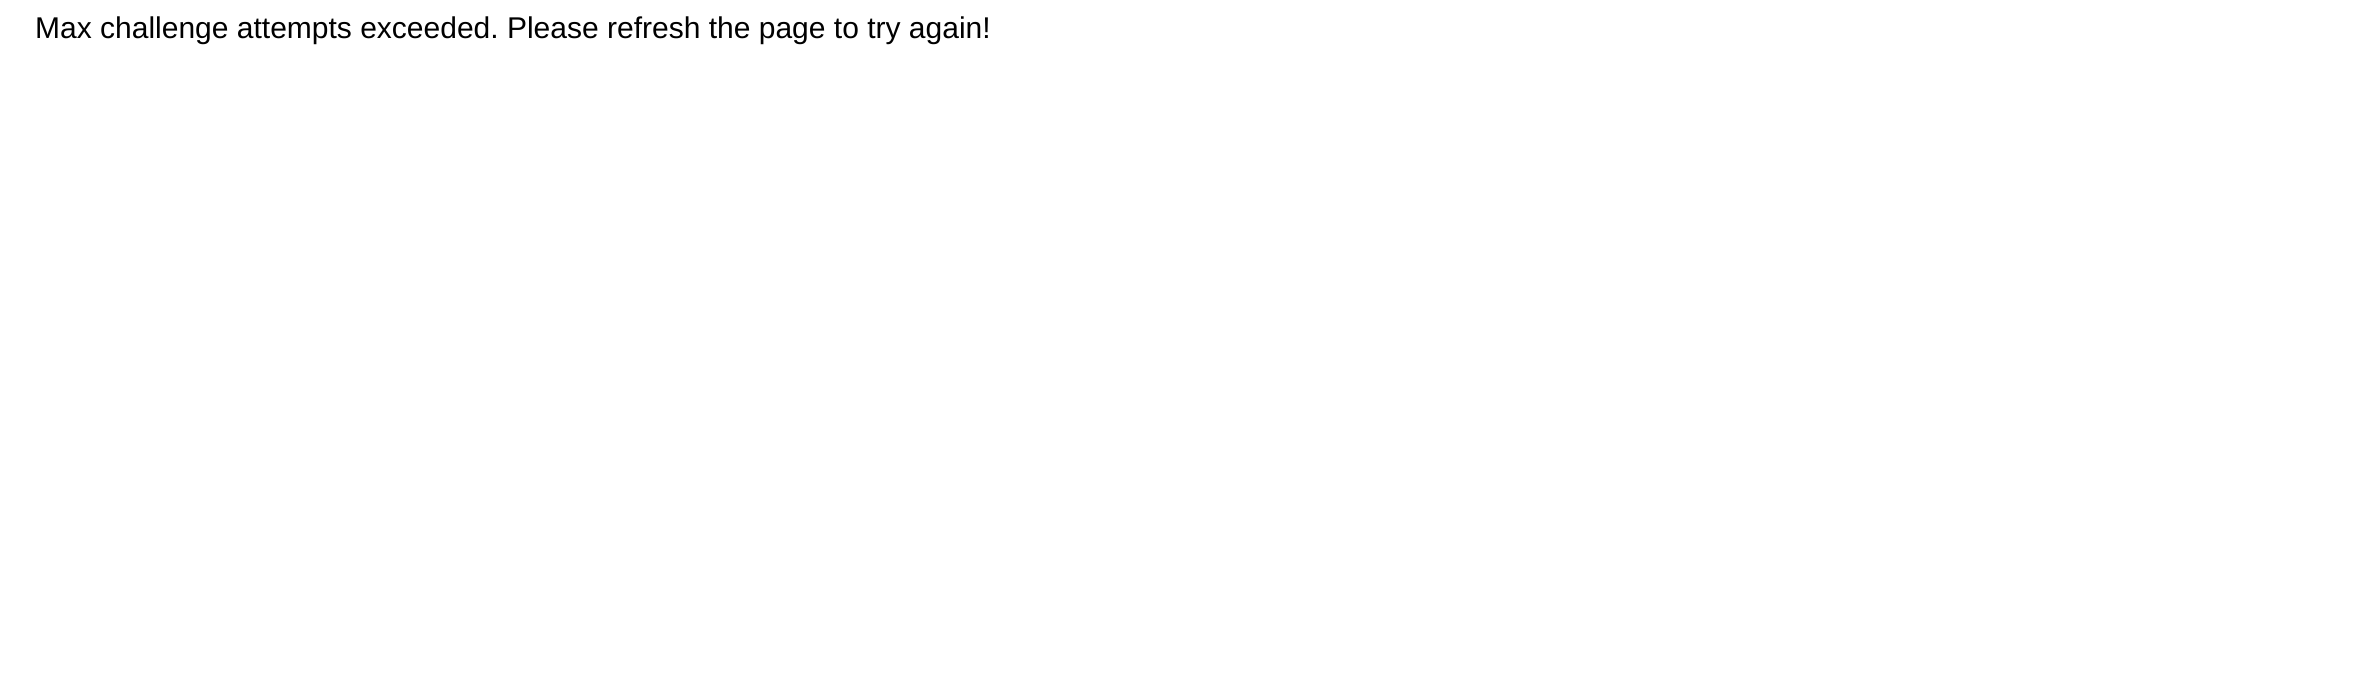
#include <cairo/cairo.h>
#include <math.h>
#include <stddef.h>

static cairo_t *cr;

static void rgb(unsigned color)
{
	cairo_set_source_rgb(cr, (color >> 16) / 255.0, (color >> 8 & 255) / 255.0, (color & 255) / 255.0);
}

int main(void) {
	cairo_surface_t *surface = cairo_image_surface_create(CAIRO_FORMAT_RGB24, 2377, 682);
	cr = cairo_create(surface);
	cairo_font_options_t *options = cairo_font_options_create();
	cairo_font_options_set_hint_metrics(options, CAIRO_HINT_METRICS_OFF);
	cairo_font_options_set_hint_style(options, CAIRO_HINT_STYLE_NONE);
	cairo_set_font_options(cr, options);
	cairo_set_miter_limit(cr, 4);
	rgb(0xffffff);
	cairo_paint(cr);
	cairo_select_font_face(cr, "Liberation Sans", CAIRO_FONT_SLANT_NORMAL, CAIRO_FONT_WEIGHT_NORMAL);
	cairo_set_font_size(cr, 30);
	rgb(0x000000);
	cairo_move_to(cr, 35, 38);
	cairo_show_text(cr, "Max challenge attempts exceeded. Please refresh the page to try again!");
	cairo_surface_write_to_png(surface, "page.png");
	cairo_font_options_destroy(options);
	cairo_destroy(cr);
	cairo_surface_destroy(surface);
	return 0;
}
